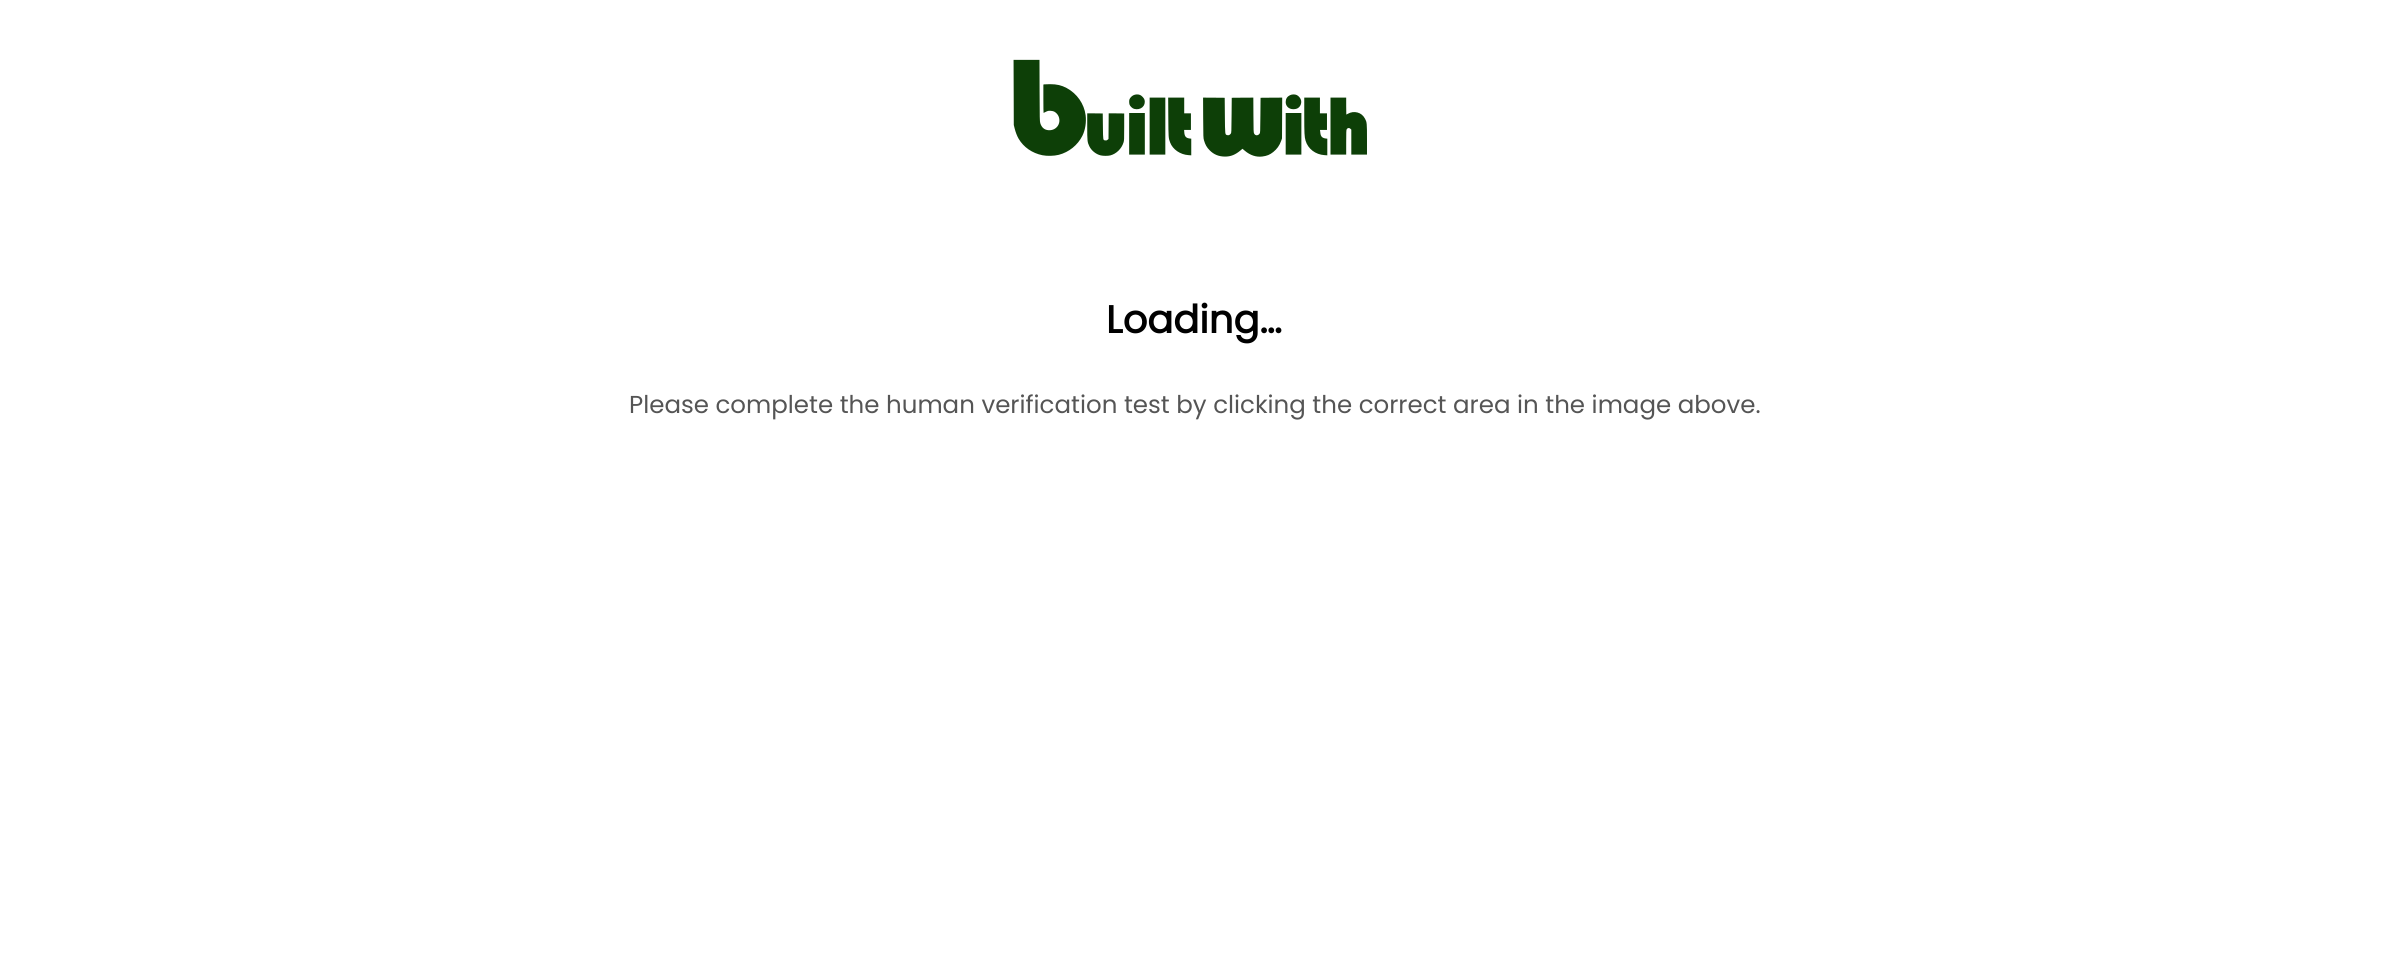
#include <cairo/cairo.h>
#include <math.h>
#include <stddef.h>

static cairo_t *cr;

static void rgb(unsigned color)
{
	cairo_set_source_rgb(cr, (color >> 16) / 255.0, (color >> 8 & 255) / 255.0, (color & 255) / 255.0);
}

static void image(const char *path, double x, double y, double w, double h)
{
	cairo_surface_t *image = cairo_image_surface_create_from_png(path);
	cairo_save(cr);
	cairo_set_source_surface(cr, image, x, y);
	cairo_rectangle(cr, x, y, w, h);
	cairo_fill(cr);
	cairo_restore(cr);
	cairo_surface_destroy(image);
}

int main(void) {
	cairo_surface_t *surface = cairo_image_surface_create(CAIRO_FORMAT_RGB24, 2388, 967);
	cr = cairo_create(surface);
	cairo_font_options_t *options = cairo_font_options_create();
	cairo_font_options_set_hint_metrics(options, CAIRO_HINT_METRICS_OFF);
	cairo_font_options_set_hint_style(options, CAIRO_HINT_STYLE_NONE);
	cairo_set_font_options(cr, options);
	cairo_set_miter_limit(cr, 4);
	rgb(0xffffff);
	cairo_paint(cr);
	image("img/1.png", 1013, 59, 354, 98);
	cairo_select_font_face(cr, "Poppins", CAIRO_FONT_SLANT_NORMAL, CAIRO_FONT_WEIGHT_BOLD);
	cairo_set_font_size(cr, 38.5);
	rgb(0x000000);
	cairo_move_to(cr, 1106, 333);
	cairo_show_text(cr, "Loading…");
	cairo_select_font_face(cr, "Poppins", CAIRO_FONT_SLANT_NORMAL, CAIRO_FONT_WEIGHT_NORMAL);
	cairo_set_font_size(cr, 24.5);
	rgb(0x555555);
	cairo_move_to(cr, 629, 413);
	cairo_show_text(cr, "Please complete the human verification test by clicking the correct area in the image above.");
	cairo_surface_write_to_png(surface, "page.png");
	cairo_font_options_destroy(options);
	cairo_destroy(cr);
	cairo_surface_destroy(surface);
	return 0;
}
